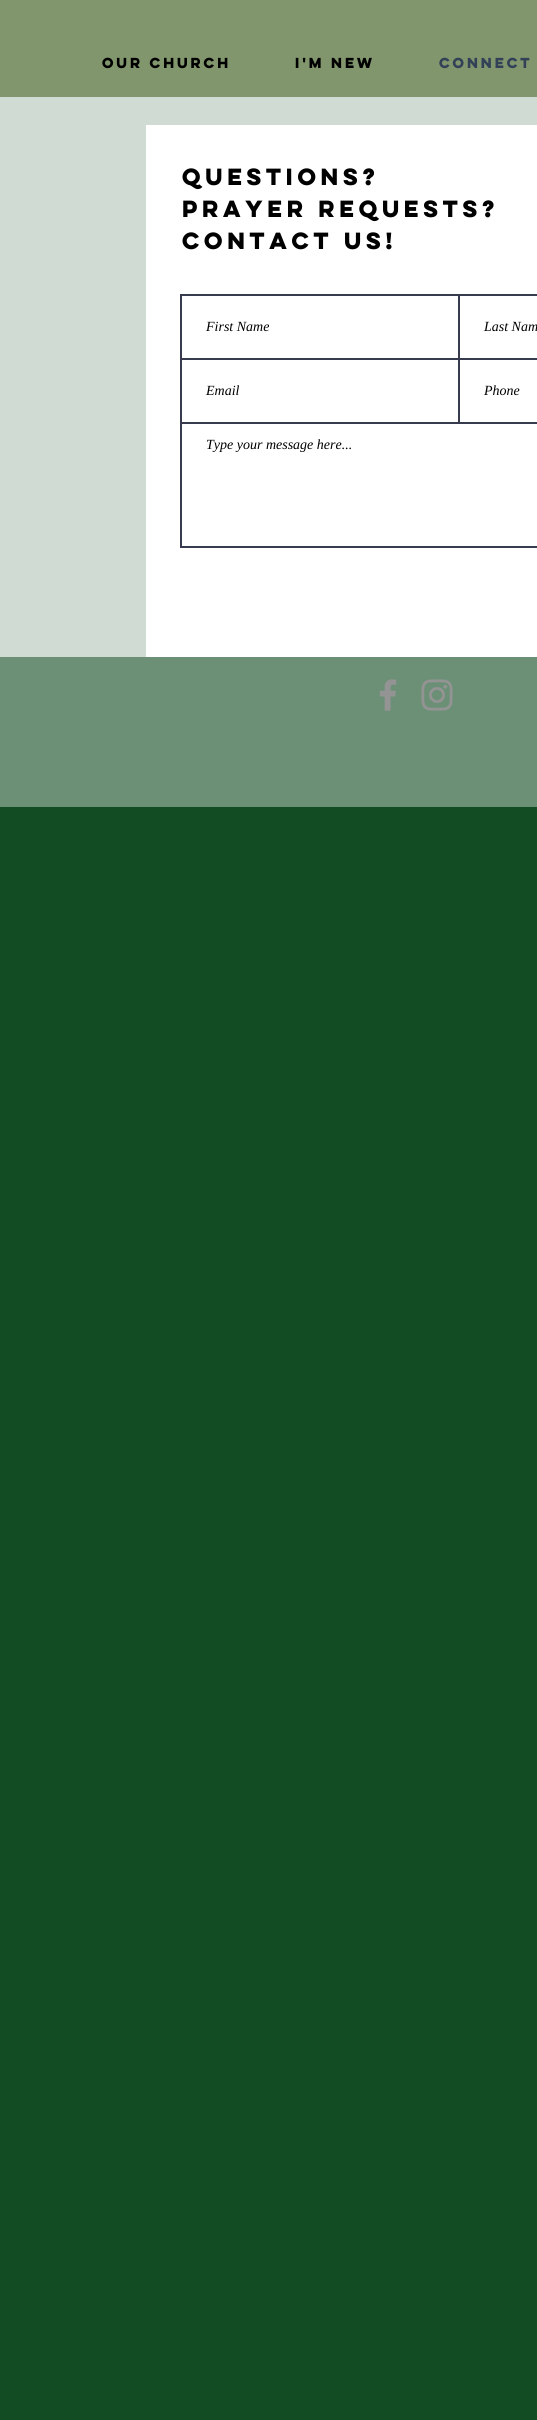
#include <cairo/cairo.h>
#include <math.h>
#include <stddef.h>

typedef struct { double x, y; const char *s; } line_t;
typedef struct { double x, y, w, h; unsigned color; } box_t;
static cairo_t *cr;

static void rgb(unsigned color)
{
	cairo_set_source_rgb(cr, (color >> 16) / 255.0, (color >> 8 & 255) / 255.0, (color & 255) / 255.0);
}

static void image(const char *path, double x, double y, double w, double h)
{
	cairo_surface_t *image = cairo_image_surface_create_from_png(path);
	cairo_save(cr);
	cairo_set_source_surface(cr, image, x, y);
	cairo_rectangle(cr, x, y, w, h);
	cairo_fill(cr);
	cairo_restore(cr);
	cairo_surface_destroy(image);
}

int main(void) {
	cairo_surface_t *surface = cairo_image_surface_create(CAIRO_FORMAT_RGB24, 537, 2420);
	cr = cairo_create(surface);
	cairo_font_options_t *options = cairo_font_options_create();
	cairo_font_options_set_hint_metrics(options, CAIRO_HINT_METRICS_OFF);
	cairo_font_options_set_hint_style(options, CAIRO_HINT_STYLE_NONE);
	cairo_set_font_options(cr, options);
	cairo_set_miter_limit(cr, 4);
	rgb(0x114c22);
	cairo_paint(cr);
	{
		static const box_t items[] = {
			{0, 0, 537, 97, 0x81966c},
			{0, 97, 537, 560, 0xcfdbd3},
			{146, 125, 391, 532, 0xffffff},
		};
		for (size_t i = 0; i < sizeof items / sizeof *items; i++) {
			rgb(items[i].color);
			cairo_rectangle(cr, items[i].x, items[i].y, items[i].w, items[i].h);
			cairo_fill(cr);
		}
	}
	cairo_rectangle(cr, 181, 295, 278, 64);
	rgb(0x373b4d);
	cairo_stroke(cr);
	cairo_rectangle(cr, 459, 295, 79, 64);
	cairo_stroke(cr);
	cairo_rectangle(cr, 181, 359, 278, 64);
	cairo_stroke(cr);
	cairo_rectangle(cr, 459, 359, 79, 64);
	cairo_stroke(cr);
	cairo_rectangle(cr, 181, 423, 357, 124);
	cairo_stroke(cr);
	rgb(0x6b9076);
	cairo_rectangle(cr, 0, 657, 537, 150);
	cairo_fill(cr);
	image("img/1.png", 379, 679, 18, 32);
	image("img/2.png", 421, 679, 32, 32);
	cairo_select_font_face(cr, "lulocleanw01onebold", CAIRO_FONT_SLANT_NORMAL, CAIRO_FONT_WEIGHT_BOLD);
	cairo_set_font_size(cr, 13);
	rgb(0x000000);
	cairo_move_to(cr, 102, 68);
	cairo_show_text(cr, "OUR CHURCH");
	cairo_move_to(cr, 295, 68);
	cairo_show_text(cr, "I'M NEW");
	rgb(0x324158);
	cairo_move_to(cr, 439, 68);
	cairo_show_text(cr, "CONNECT");
	cairo_set_font_size(cr, 21);
	rgb(0x000000);
	{
		static const line_t items[] = {
			{182, 185, "Questions?"},
			{182, 217, "Prayer Requests?"},
			{182, 249, "Contact Us!"},
		};
		for (size_t i = 0; i < sizeof items / sizeof *items; i++) {
			cairo_move_to(cr, items[i].x, items[i].y);
			cairo_show_text(cr, items[i].s);
		}
	}
	cairo_select_font_face(cr, "Liberation Serif", CAIRO_FONT_SLANT_ITALIC, CAIRO_FONT_WEIGHT_NORMAL);
	cairo_set_font_size(cr, 14);
	{
		static const line_t items[] = {
			{206, 331, "First Name"},
			{484, 331, "Last Nam"},
			{206, 395, "Email"},
			{484, 395, "Phone"},
			{206, 449, "Type your message here..."},
		};
		for (size_t i = 0; i < sizeof items / sizeof *items; i++) {
			cairo_move_to(cr, items[i].x, items[i].y);
			cairo_show_text(cr, items[i].s);
		}
	}
	cairo_surface_write_to_png(surface, "page.png");
	cairo_font_options_destroy(options);
	cairo_destroy(cr);
	cairo_surface_destroy(surface);
	return 0;
}
